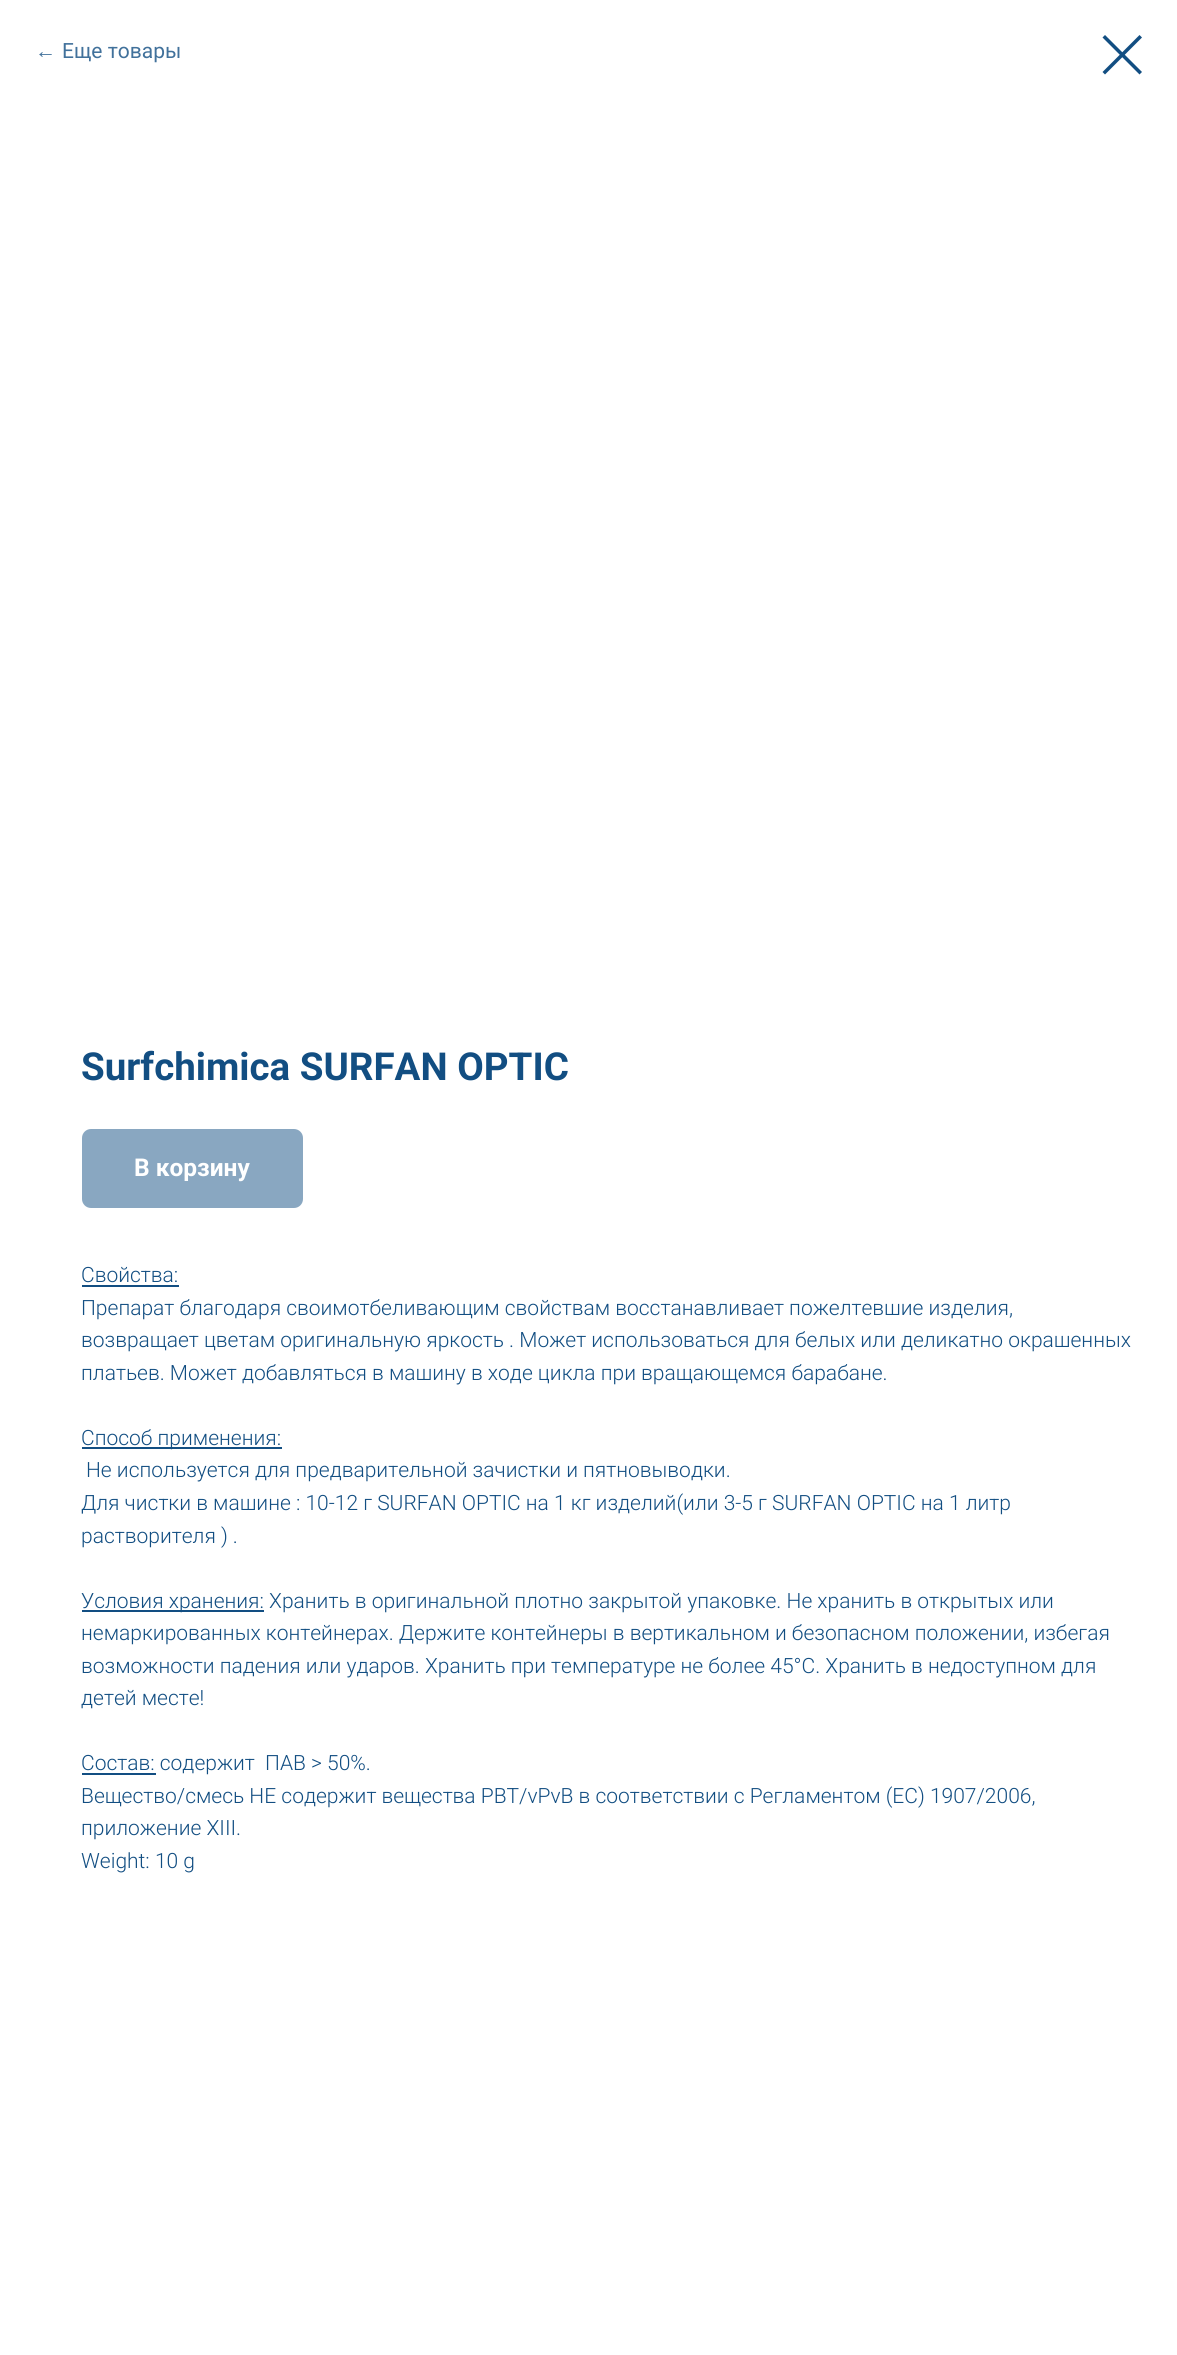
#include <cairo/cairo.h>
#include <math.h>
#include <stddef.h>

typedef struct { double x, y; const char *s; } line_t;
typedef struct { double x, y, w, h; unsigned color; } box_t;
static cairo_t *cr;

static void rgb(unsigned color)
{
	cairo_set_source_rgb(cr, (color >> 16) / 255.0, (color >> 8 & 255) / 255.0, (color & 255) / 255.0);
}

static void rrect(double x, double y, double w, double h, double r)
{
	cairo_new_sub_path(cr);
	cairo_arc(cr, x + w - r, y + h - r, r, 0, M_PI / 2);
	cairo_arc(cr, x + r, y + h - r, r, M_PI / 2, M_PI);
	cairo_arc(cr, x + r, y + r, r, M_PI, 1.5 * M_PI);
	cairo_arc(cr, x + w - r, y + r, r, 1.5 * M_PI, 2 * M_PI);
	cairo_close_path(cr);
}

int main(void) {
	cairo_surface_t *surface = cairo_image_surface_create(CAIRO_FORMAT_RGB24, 1177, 2355);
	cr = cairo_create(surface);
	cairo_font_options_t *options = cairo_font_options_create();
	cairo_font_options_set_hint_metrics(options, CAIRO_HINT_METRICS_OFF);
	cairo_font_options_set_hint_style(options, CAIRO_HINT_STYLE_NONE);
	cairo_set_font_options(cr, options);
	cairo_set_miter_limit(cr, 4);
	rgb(0xffffff);
	cairo_paint(cr);
	rgb(0x124e82);
	cairo_set_fill_rule(cr, CAIRO_FILL_RULE_EVEN_ODD);
	cairo_new_path(cr);
	cairo_move_to(cr, 1102.5, 37.5);
	cairo_line_to(cr, 1105, 35);
	cairo_line_to(cr, 1142, 72);
	cairo_line_to(cr, 1139.5, 74.5);
	cairo_close_path(cr);
	cairo_fill(cr);
	cairo_new_path(cr);
	cairo_move_to(cr, 1139.5, 35);
	cairo_line_to(cr, 1142, 37.5);
	cairo_line_to(cr, 1105, 74.5);
	cairo_line_to(cr, 1102.5, 72);
	cairo_close_path(cr);
	cairo_fill(cr);
	rgb(0x89a7c1);
	rrect(82, 1129, 221, 79, 9);
	cairo_fill(cr);
	{
		static const box_t items[] = {
			{82, 1285, 97, 2, 0x124e82},
			{82, 1447, 200, 2, 0x124e82},
			{82, 1610, 182, 2, 0x124e82},
			{82, 1773, 74, 2, 0x124e82},
		};
		for (size_t i = 0; i < sizeof items / sizeof *items; i++) {
			rgb(items[i].color);
			cairo_rectangle(cr, items[i].x, items[i].y, items[i].w, items[i].h);
			cairo_fill(cr);
		}
	}
	cairo_select_font_face(cr, "Liberation Sans", CAIRO_FONT_SLANT_NORMAL, CAIRO_FONT_WEIGHT_NORMAL);
	cairo_set_font_size(cr, 21);
	rgb(0x41719b);
	cairo_move_to(cr, 35, 58);
	cairo_show_text(cr, "←");
	cairo_select_font_face(cr, "Roboto", CAIRO_FONT_SLANT_NORMAL, CAIRO_FONT_WEIGHT_NORMAL);
	cairo_move_to(cr, 62, 58);
	cairo_show_text(cr, "Еще товары");
	cairo_select_font_face(cr, "Roboto", CAIRO_FONT_SLANT_NORMAL, CAIRO_FONT_WEIGHT_BOLD);
	cairo_set_font_size(cr, 38.5);
	rgb(0x124e82);
	cairo_move_to(cr, 81, 1080);
	cairo_show_text(cr, "Surfchimica SURFAN OPTIC");
	cairo_set_font_size(cr, 24.5);
	rgb(0xffffff);
	cairo_move_to(cr, 134, 1176);
	cairo_show_text(cr, "В корзину");
	cairo_select_font_face(cr, "Roboto Light", CAIRO_FONT_SLANT_NORMAL, CAIRO_FONT_WEIGHT_NORMAL);
	cairo_set_font_size(cr, 21);
	rgb(0x124e82);
	{
		static const line_t items[] = {
			{81, 1282, "Свойства:"},
			{81, 1315, "Препарат благодаря своимотбеливающим свойствам восстанавливает пожелтевшие изделия,"},
			{81, 1347, "возвращает цветам оригинальную яркость . Может использоваться для белых или деликатно окрашенных"},
			{81, 1380, "платьев. Может добавляться в машину в ходе цикла при вращающемся барабане."},
			{81, 1445, "Способ применения:"},
			{86, 1477, "Не используется для предварительной зачистки и пятновыводки."},
			{81, 1510, "Для чистки в машине : 10-12 г SURFAN OPTIC на 1 кг изделий(или 3-5 г SURFAN OPTIC на 1 литр"},
			{81, 1543, "растворителя ) ."},
			{81, 1608, "Условия хранения: Хранить в оригинальной плотно закрытой упаковке. Не хранить в открытых или"},
			{81, 1640, "немаркированных контейнерах. Держите контейнеры в вертикальном и безопасном положении, избегая"},
			{81, 1673, "возможности падения или ударов. Хранить при температуре не более 45°C. Хранить в недоступном для"},
			{81, 1705, "детей месте!"},
			{81, 1770, "Состав: содержит  ПАВ > 50%."},
			{81, 1803, "Вещество/смесь НЕ содержит вещества PBT/vPvB в соответствии с Регламентом (ЕС) 1907/2006,"},
			{81, 1835, "приложение XIII."},
			{81, 1868, "Weight: 10 g"},
		};
		for (size_t i = 0; i < sizeof items / sizeof *items; i++) {
			cairo_move_to(cr, items[i].x, items[i].y);
			cairo_show_text(cr, items[i].s);
		}
	}
	cairo_surface_write_to_png(surface, "page.png");
	cairo_font_options_destroy(options);
	cairo_destroy(cr);
	cairo_surface_destroy(surface);
	return 0;
}
